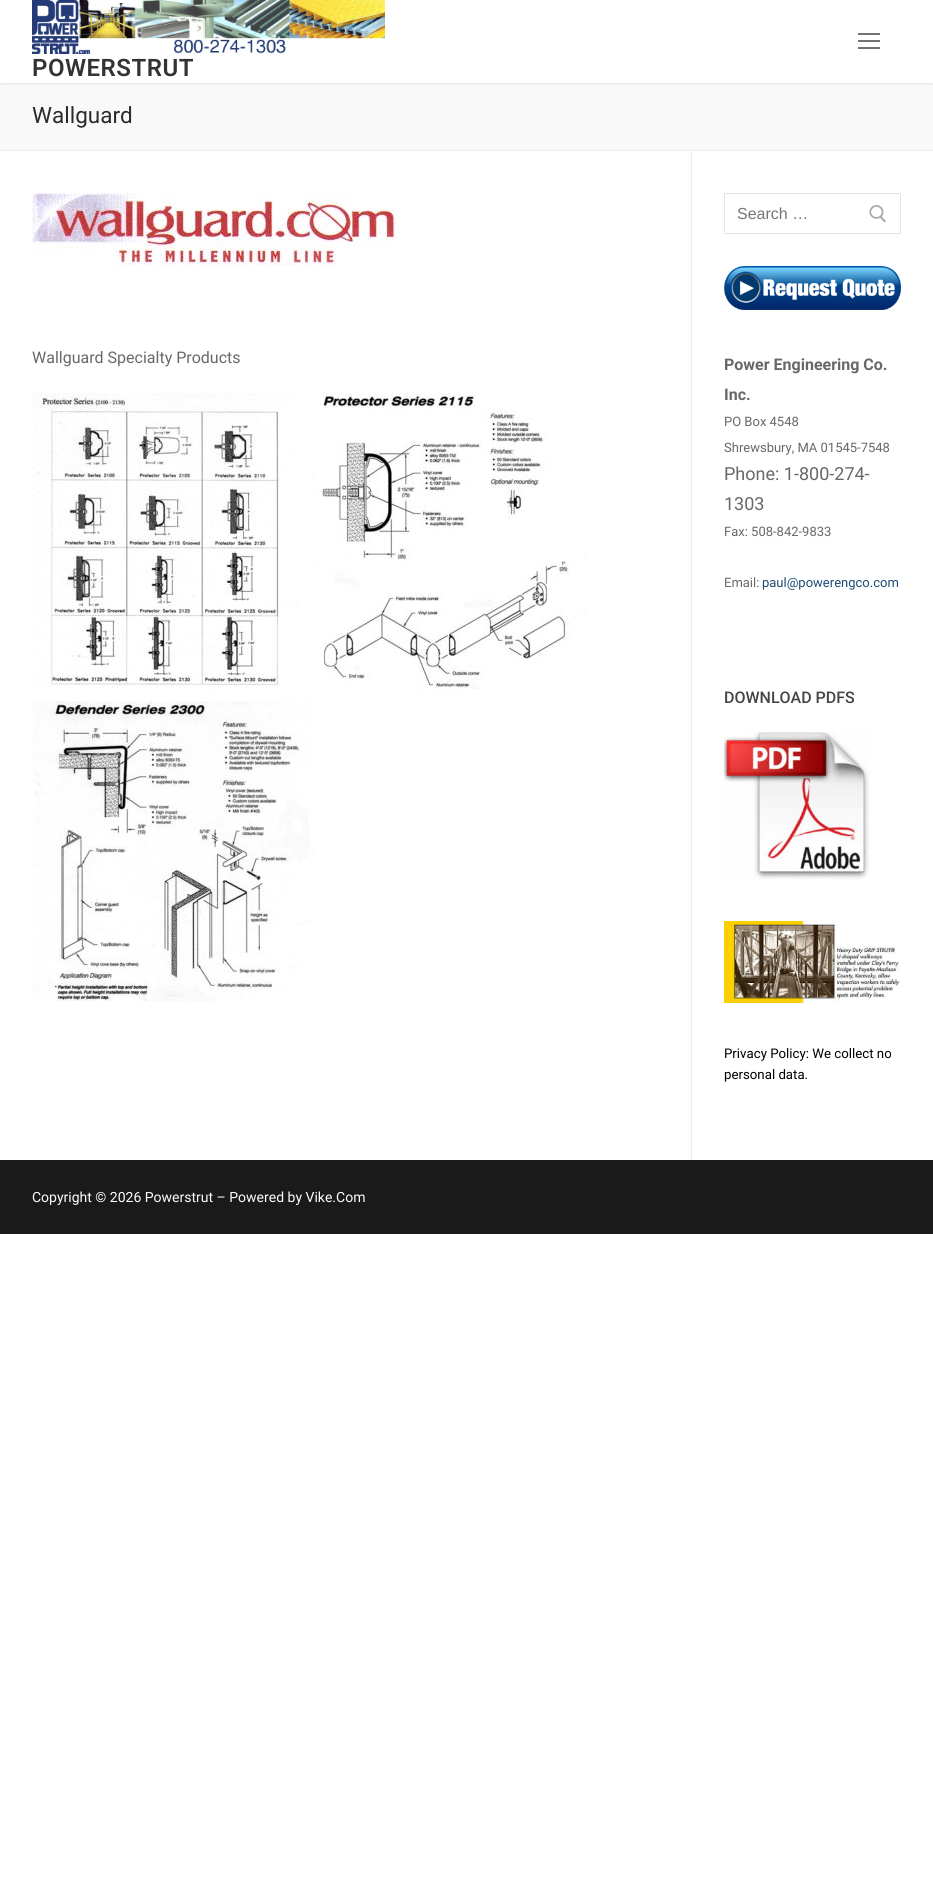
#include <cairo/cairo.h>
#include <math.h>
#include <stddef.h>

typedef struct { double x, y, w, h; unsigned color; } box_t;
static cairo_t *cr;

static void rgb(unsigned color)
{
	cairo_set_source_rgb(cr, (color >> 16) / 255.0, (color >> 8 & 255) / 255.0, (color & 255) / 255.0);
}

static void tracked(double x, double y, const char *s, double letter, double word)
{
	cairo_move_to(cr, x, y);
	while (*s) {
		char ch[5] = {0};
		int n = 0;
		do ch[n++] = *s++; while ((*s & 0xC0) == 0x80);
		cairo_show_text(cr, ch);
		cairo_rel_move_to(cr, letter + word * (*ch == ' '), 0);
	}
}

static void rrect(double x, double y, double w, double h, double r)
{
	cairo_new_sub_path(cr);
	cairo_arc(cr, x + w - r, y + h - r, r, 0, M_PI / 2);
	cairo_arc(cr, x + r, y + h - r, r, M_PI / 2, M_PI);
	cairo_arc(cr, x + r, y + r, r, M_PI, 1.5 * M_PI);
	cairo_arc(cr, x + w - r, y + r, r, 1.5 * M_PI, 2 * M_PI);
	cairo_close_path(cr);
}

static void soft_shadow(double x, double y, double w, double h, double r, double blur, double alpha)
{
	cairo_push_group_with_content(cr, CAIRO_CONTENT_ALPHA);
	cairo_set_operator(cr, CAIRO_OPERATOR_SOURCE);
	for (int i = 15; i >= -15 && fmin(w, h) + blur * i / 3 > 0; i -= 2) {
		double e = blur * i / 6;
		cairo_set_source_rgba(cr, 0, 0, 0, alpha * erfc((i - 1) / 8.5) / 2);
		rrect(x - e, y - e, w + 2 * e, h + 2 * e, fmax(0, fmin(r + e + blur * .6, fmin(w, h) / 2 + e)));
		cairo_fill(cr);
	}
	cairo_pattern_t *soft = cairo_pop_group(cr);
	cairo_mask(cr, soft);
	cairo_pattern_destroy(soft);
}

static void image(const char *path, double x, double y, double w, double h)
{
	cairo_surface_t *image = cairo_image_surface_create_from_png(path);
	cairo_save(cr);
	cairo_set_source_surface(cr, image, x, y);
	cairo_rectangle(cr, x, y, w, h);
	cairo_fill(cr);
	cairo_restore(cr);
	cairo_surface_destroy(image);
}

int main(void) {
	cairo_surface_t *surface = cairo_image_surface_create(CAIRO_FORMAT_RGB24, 933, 1894);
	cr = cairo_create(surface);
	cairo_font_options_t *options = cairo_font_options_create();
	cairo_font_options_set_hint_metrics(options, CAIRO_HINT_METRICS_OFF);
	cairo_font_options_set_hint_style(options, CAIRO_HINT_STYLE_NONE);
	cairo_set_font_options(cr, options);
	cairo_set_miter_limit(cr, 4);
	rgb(0xffffff);
	cairo_paint(cr);
	rgb(0xf9f9f9);
	cairo_rectangle(cr, 0, 83, 933, 67);
	cairo_fill(cr);
	cairo_save(cr);
	cairo_rectangle(cr, 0, 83, 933, 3);
	cairo_clip(cr);
	rgb(0xe1e5ea);
	soft_shadow(0, 1, 933, 83, 0, 1, 1);
	cairo_restore(cr);
	{
		static const box_t items[] = {
			{858, 40, 22, 2, 0x737373},
			{858, 33, 22, 2, 0x737373},
			{858, 47, 22, 2, 0x737373},
		};
		for (size_t i = 0; i < sizeof items / sizeof *items; i++) {
			rgb(items[i].color);
			cairo_rectangle(cr, items[i].x, items[i].y, items[i].w, items[i].h);
			cairo_fill(cr);
		}
	}
	image("img/1.png", 32, 0, 353, 54);
	rgb(0xeaecee);
	cairo_rectangle(cr, 0, 150, 933, 1);
	cairo_fill(cr);
	cairo_rectangle(cr, 691, 151, 1, 1009);
	cairo_fill(cr);
	image("img/2.png", 32, 193, 365, 73);
	image("img/3.png", 32, 393, 268, 296);
	image("img/4.png", 313, 393, 273, 296);
	image("img/5.png", 32, 701, 282, 300);
	rrect(724.5, 193.5, 176, 40, 0.5);
	rgb(0xe5e5e5);
	cairo_set_line_width(cr, 1);
	cairo_stroke(cr);
	image("img/6.png", 869, 205, 17, 18);
	image("img/7.png", 724, 266, 177, 44);
	image("img/8.png", 724, 731, 146, 149);
	image("img/9.png", 724, 921, 176, 82);
	rgb(0x1a1a1a);
	cairo_rectangle(cr, 0, 1160, 933, 74);
	cairo_fill(cr);
	cairo_select_font_face(cr, "Roboto SemiBold", CAIRO_FONT_SLANT_NORMAL, CAIRO_FONT_WEIGHT_NORMAL);
	cairo_set_font_size(cr, 24);
	rgb(0x333333);
	tracked(32, 76, "POWERSTRUT", 0.5, 0);
	cairo_select_font_face(cr, "Roboto", CAIRO_FONT_SLANT_NORMAL, CAIRO_FONT_WEIGHT_NORMAL);
	cairo_set_font_size(cr, 22.5);
	rgb(0x2b2b2b);
	cairo_move_to(cr, 32, 123);
	cairo_show_text(cr, "Wallguard");
	cairo_set_font_size(cr, 16);
	rgb(0x686868);
	cairo_move_to(cr, 32, 363);
	cairo_show_text(cr, "Wallguard Specialty Products");
	cairo_select_font_face(cr, "Liberation Sans", CAIRO_FONT_SLANT_NORMAL, CAIRO_FONT_WEIGHT_NORMAL);
	rgb(0x757575);
	cairo_move_to(cr, 737, 219);
	cairo_show_text(cr, "Search …");
	cairo_select_font_face(cr, "Roboto", CAIRO_FONT_SLANT_NORMAL, CAIRO_FONT_WEIGHT_BOLD);
	rgb(0x686868);
	cairo_move_to(cr, 724, 370);
	cairo_show_text(cr, "Power Engineering Co.");
	cairo_move_to(cr, 724, 400);
	cairo_show_text(cr, "Inc.");
	cairo_select_font_face(cr, "Roboto", CAIRO_FONT_SLANT_NORMAL, CAIRO_FONT_WEIGHT_NORMAL);
	cairo_set_font_size(cr, 13);
	cairo_move_to(cr, 724, 426);
	cairo_show_text(cr, "PO Box 4548");
	cairo_move_to(cr, 724, 452);
	cairo_show_text(cr, "Shrewsbury, MA 01545-7548");
	cairo_set_font_size(cr, 18);
	cairo_move_to(cr, 724, 480);
	cairo_show_text(cr, "Phone: 1-800-274-");
	cairo_move_to(cr, 724, 510);
	cairo_show_text(cr, "1303");
	cairo_set_font_size(cr, 13);
	cairo_move_to(cr, 724, 536);
	cairo_show_text(cr, "Fax: 508-842-9833");
	cairo_move_to(cr, 724, 587);
	cairo_show_text(cr, "Email:");
	rgb(0x1e4b75);
	cairo_move_to(cr, 762, 587);
	cairo_show_text(cr, "paul@powerengco.com");
	cairo_select_font_face(cr, "Roboto Medium", CAIRO_FONT_SLANT_NORMAL, CAIRO_FONT_WEIGHT_NORMAL);
	cairo_set_font_size(cr, 16);
	rgb(0x444444);
	cairo_move_to(cr, 724, 703);
	cairo_show_text(cr, "DOWNLOAD PDFS");
	cairo_select_font_face(cr, "Roboto", CAIRO_FONT_SLANT_NORMAL, CAIRO_FONT_WEIGHT_NORMAL);
	cairo_set_font_size(cr, 13.25);
	rgb(0x000000);
	cairo_move_to(cr, 724, 1058);
	cairo_show_text(cr, "Privacy Policy: We collect no");
	cairo_move_to(cr, 724, 1079);
	cairo_show_text(cr, "personal data.");
	cairo_set_font_size(cr, 14);
	rgb(0xfdfdfd);
	cairo_move_to(cr, 32, 1202);
	cairo_show_text(cr, "Copyright © 2026 Powerstrut – Powered by Vike.Com");
	cairo_surface_write_to_png(surface, "page.png");
	cairo_font_options_destroy(options);
	cairo_destroy(cr);
	cairo_surface_destroy(surface);
	return 0;
}
